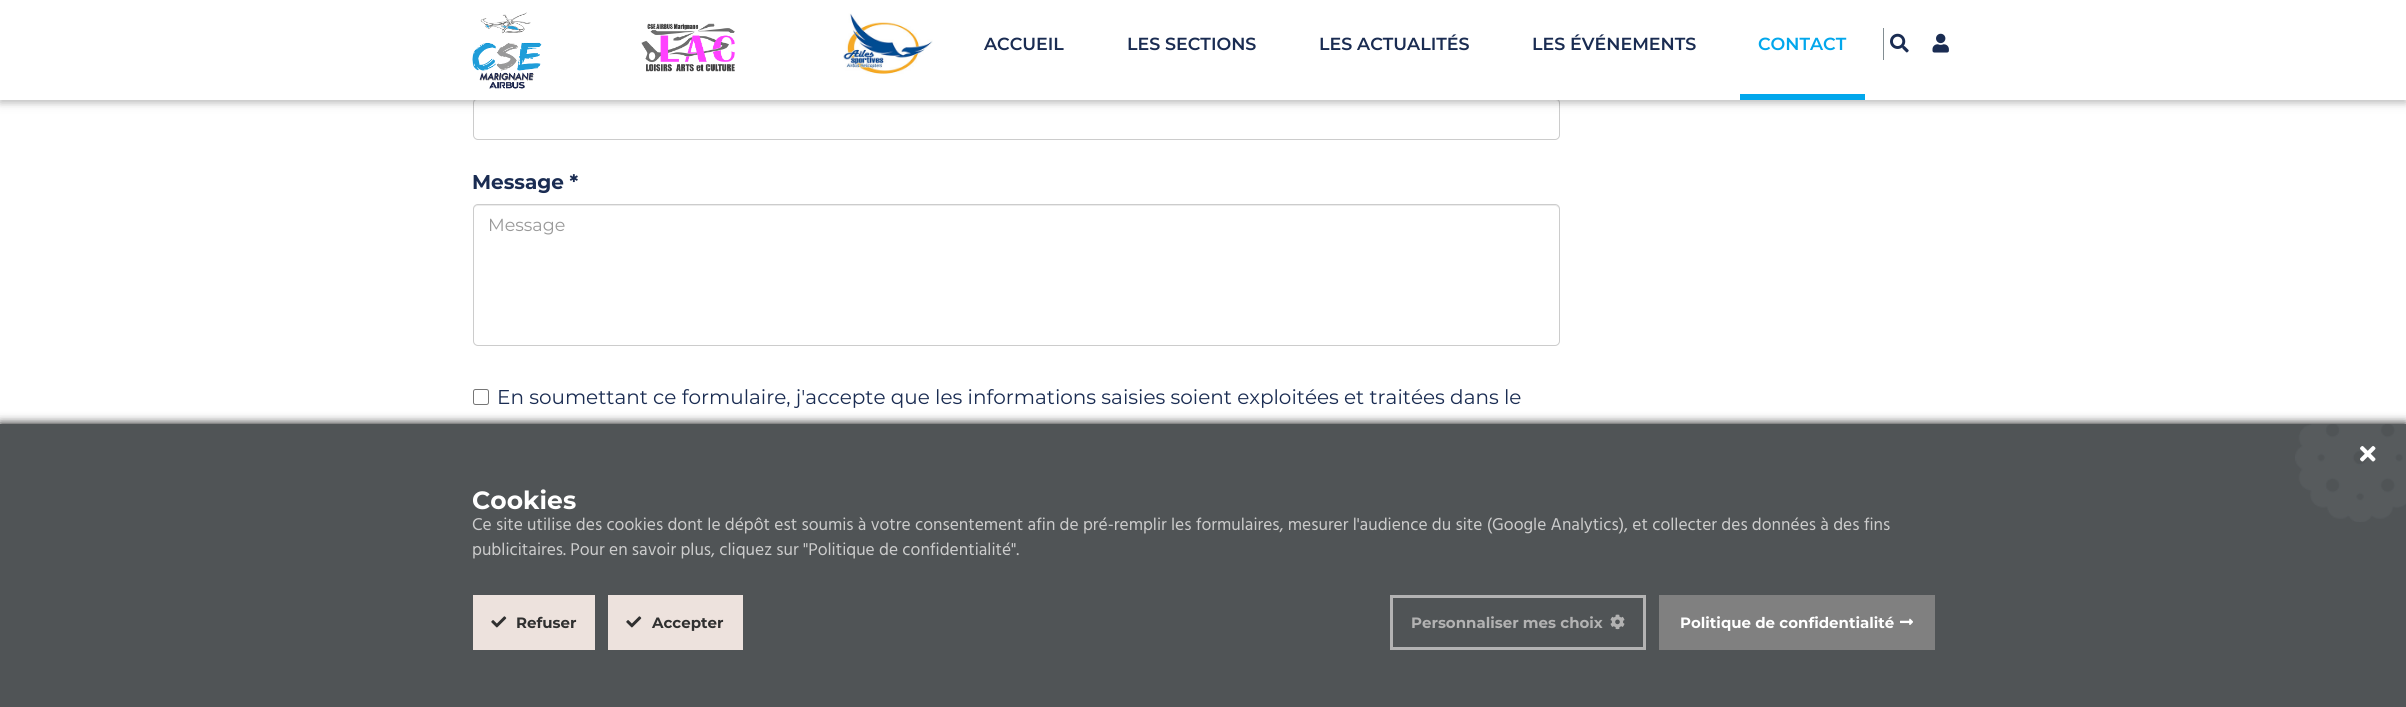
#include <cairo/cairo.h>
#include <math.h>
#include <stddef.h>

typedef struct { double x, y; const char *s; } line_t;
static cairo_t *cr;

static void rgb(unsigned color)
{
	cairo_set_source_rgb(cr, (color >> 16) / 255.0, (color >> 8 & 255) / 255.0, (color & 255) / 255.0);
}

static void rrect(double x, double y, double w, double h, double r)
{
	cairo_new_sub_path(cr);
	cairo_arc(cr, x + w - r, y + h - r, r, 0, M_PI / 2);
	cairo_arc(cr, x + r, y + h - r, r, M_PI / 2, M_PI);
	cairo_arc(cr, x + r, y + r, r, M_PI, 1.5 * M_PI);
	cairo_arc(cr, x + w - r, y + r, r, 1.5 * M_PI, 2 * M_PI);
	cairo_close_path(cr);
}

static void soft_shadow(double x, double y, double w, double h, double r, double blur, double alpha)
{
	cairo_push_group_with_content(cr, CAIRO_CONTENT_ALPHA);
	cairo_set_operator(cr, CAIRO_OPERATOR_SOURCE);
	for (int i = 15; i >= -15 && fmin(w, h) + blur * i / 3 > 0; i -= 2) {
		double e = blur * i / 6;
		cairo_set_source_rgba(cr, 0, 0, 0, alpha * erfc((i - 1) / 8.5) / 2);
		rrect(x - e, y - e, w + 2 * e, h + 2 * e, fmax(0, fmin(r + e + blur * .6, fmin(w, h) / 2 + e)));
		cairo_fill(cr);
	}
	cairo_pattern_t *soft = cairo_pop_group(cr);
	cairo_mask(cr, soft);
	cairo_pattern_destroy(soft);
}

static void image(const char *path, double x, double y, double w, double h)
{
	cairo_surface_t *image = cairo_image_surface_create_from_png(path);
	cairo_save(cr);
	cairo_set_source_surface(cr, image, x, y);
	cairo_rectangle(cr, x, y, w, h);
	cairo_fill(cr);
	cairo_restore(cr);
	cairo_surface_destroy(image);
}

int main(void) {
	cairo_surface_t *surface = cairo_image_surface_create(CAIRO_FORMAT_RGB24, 2406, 707);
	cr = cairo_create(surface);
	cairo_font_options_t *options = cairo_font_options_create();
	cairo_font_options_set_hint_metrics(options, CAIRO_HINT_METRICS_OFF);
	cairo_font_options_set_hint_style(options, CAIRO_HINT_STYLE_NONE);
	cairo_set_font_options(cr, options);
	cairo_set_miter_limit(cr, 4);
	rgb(0xffffff);
	cairo_paint(cr);
	rgb(0xececec);
	cairo_new_path(cr);
	cairo_move_to(cr, 478, 100);
	cairo_line_to(cr, 1555, 100);
	cairo_curve_to(cr, 1557, 100, 1559, 102, 1559, 104);
	cairo_curve_to(cr, 1559, 101, 1558, 99, 1555, 99);
	cairo_line_to(cr, 478, 99);
	cairo_curve_to(cr, 475, 99, 474, 101, 474, 104);
	cairo_curve_to(cr, 474, 102, 475, 100, 478, 100);
	cairo_close_path(cr);
	cairo_fill(cr);
	rrect(473.5, 98.5, 1086, 41, 4.5);
	rgb(0xcccccc);
	cairo_set_line_width(cr, 1);
	cairo_stroke(cr);
	rgb(0x000000);
	soft_shadow(0, 3, 2406, 100, 0, 6, 0.12);
	soft_shadow(0, 3, 2406, 100, 0, 3, 0.16);
	rgb(0xffffff);
	cairo_rectangle(cr, 0, 0, 2406, 100);
	cairo_fill(cr);
	image("img/1.png", 472, 12, 70, 77);
	image("img/2.png", 641, 23, 94, 49);
	image("img/3.png", 843, 13, 90, 61);
	rgb(0x02a7ec);
	cairo_rectangle(cr, 1740, 94, 125, 6);
	cairo_fill(cr);
	rgb(0x828d92);
	cairo_rectangle(cr, 1883, 28, 1, 32);
	cairo_fill(cr);
	image("img/4.png", 1890, 33, 19, 20);
	image("img/5.png", 1932, 33, 17, 20);
	rgb(0xececec);
	cairo_new_path(cr);
	cairo_move_to(cr, 478, 206);
	cairo_line_to(cr, 1555, 206);
	cairo_curve_to(cr, 1557, 206, 1559, 208, 1559, 210);
	cairo_curve_to(cr, 1559, 207, 1558, 205, 1555, 205);
	cairo_line_to(cr, 478, 205);
	cairo_curve_to(cr, 475, 205, 474, 207, 474, 210);
	cairo_curve_to(cr, 474, 208, 475, 206, 478, 206);
	cairo_close_path(cr);
	cairo_fill(cr);
	rrect(473.5, 204.5, 1086, 141, 4.5);
	rgb(0xcccccc);
	cairo_stroke(cr);
	rrect(473.5, 389.5, 15, 15, 2);
	rgb(0x767676);
	cairo_stroke(cr);
	rgb(0x000000);
	soft_shadow(0, 424, 2406, 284, 0, 5, 1);
	rgb(0x505456);
	cairo_rectangle(cr, 0, 424, 2406, 283);
	cairo_fill(cr);
	image("img/6.png", 2295, 424, 111, 98);
	image("img/7.png", 2360, 446, 16, 16);
	rgb(0xede2dd);
	cairo_rectangle(cr, 473, 595, 122, 55);
	cairo_fill(cr);
	image("img/8.png", 491, 616, 16, 12);
	cairo_rectangle(cr, 608, 595, 135, 55);
	cairo_fill(cr);
	image("img/8.png", 626, 616, 16, 12);
	cairo_rectangle(cr, 1391.5, 596.5, 253, 52);
	rgb(0xb3b3b3);
	cairo_set_line_width(cr, 3);
	cairo_stroke(cr);
	image("img/9.png", 1610, 614, 15, 16);
	rgb(0x808080);
	cairo_rectangle(cr, 1659, 595, 276, 55);
	cairo_fill(cr);
	image("img/10.png", 1900, 618, 13, 7);
	cairo_select_font_face(cr, "Montserrat SemiBold", CAIRO_FONT_SLANT_NORMAL, CAIRO_FONT_WEIGHT_NORMAL);
	cairo_set_font_size(cr, 17.5);
	rgb(0x1a2c52);
	{
		static const line_t items[] = {
			{984, 50, "ACCUEIL"},
			{1127, 50, "LES SECTIONS"},
			{1319, 50, "LES ACTUALITÉS"},
			{1532, 50, "LES ÉVÉNEMENTS"},
		};
		for (size_t i = 0; i < sizeof items / sizeof *items; i++) {
			cairo_move_to(cr, items[i].x, items[i].y);
			cairo_show_text(cr, items[i].s);
		}
	}
	rgb(0x02a7ec);
	cairo_move_to(cr, 1758, 50);
	cairo_show_text(cr, "CONTACT");
	cairo_select_font_face(cr, "Montserrat", CAIRO_FONT_SLANT_NORMAL, CAIRO_FONT_WEIGHT_BOLD);
	cairo_set_font_size(cr, 20);
	rgb(0x1a2c52);
	cairo_move_to(cr, 472, 189);
	cairo_show_text(cr, "Message *");
	cairo_select_font_face(cr, "Montserrat", CAIRO_FONT_SLANT_NORMAL, CAIRO_FONT_WEIGHT_NORMAL);
	cairo_set_font_size(cr, 17.5);
	rgb(0x999999);
	cairo_move_to(cr, 488, 231);
	cairo_show_text(cr, "Message");
	cairo_set_font_size(cr, 20);
	rgb(0x1a2c52);
	cairo_move_to(cr, 497, 404);
	cairo_show_text(cr, "En soumettant ce formulaire, j'accepte que les informations saisies soient exploitées et traitées dans le");
	cairo_select_font_face(cr, "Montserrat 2", CAIRO_FONT_SLANT_NORMAL, CAIRO_FONT_WEIGHT_BOLD);
	cairo_set_font_size(cr, 25);
	rgb(0xffffff);
	cairo_move_to(cr, 472, 509);
	cairo_show_text(cr, "Cookies");
	cairo_select_font_face(cr, "Hind", CAIRO_FONT_SLANT_NORMAL, CAIRO_FONT_WEIGHT_NORMAL);
	cairo_set_font_size(cr, 17.5);
	rgb(0xcccccc);
	cairo_move_to(cr, 472, 530);
	cairo_show_text(cr, "Ce site utilise des cookies dont le dépôt est soumis à votre consentement afin de pré-remplir les formulaires, mesurer l'audience du site (Google Analytics), et collecter des données à des fins");
	cairo_move_to(cr, 472, 555);
	cairo_show_text(cr, "publicitaires. Pour en savoir plus, cliquez sur \"Politique de confidentialité\".");
	cairo_select_font_face(cr, "Montserrat 2", CAIRO_FONT_SLANT_NORMAL, CAIRO_FONT_WEIGHT_BOLD);
	cairo_set_font_size(cr, 15);
	rgb(0x303030);
	cairo_move_to(cr, 516, 628);
	cairo_show_text(cr, "Refuser");
	cairo_move_to(cr, 652, 628);
	cairo_show_text(cr, "Accepter");
	rgb(0xb2b2b2);
	cairo_move_to(cr, 1411, 628);
	cairo_show_text(cr, "Personnaliser mes choix");
	rgb(0xffffff);
	cairo_move_to(cr, 1680, 628);
	cairo_show_text(cr, "Politique de confidentialité");
	cairo_surface_write_to_png(surface, "page.png");
	cairo_font_options_destroy(options);
	cairo_destroy(cr);
	cairo_surface_destroy(surface);
	return 0;
}
